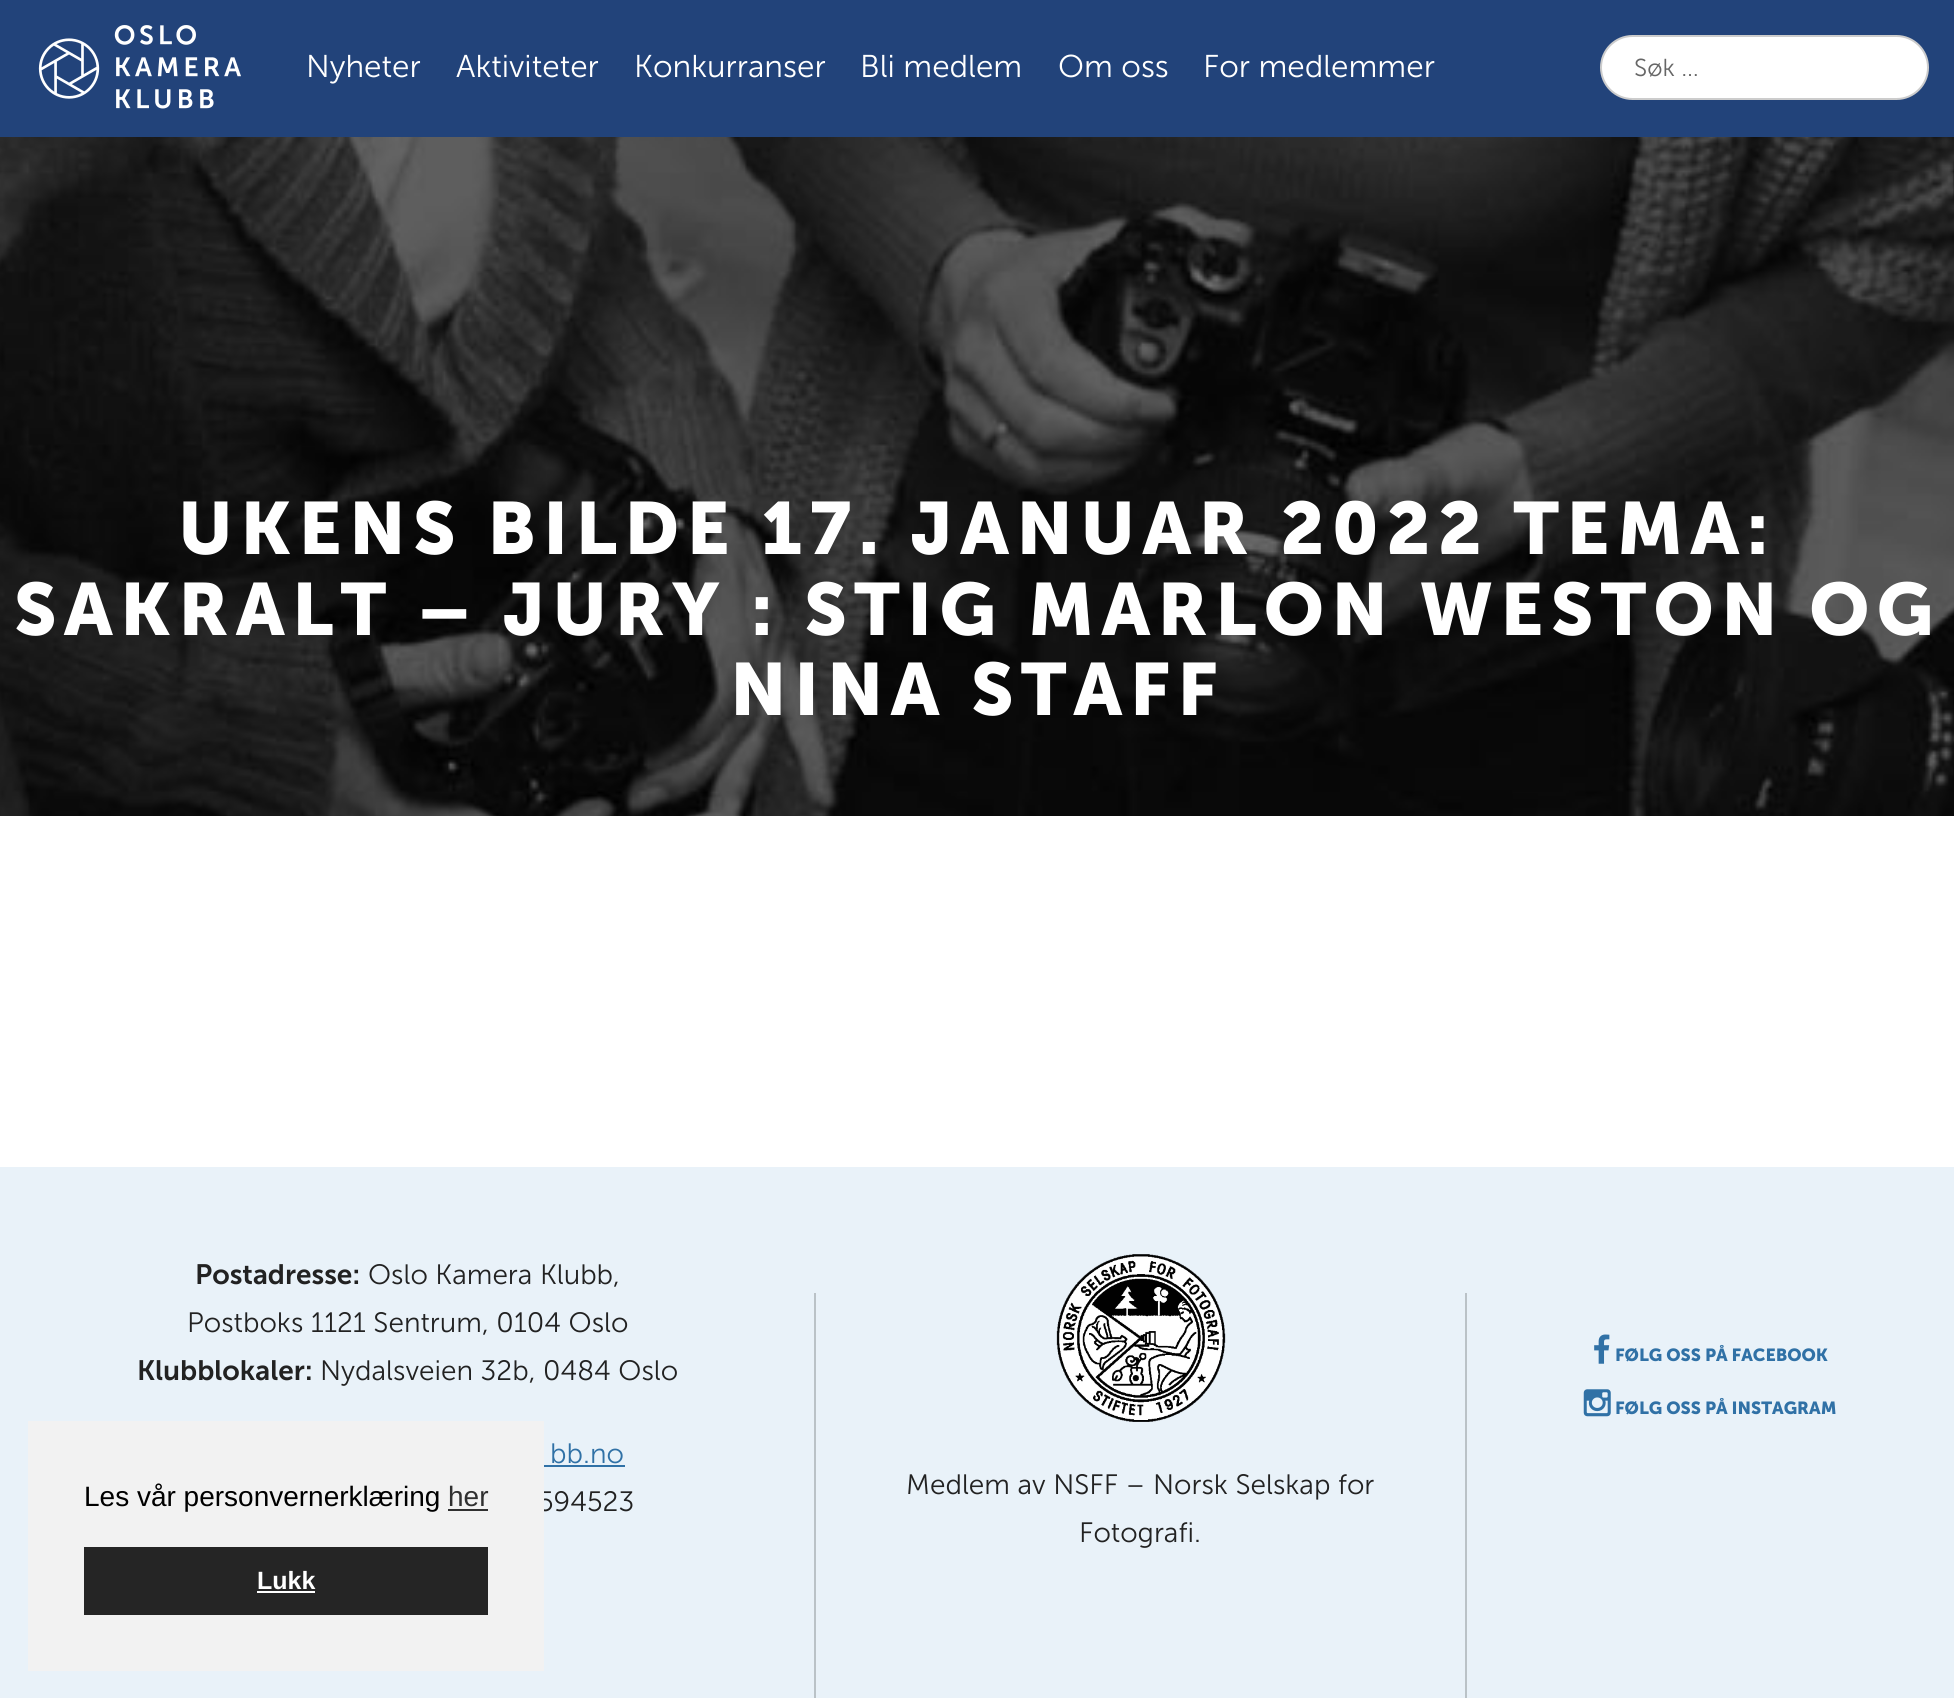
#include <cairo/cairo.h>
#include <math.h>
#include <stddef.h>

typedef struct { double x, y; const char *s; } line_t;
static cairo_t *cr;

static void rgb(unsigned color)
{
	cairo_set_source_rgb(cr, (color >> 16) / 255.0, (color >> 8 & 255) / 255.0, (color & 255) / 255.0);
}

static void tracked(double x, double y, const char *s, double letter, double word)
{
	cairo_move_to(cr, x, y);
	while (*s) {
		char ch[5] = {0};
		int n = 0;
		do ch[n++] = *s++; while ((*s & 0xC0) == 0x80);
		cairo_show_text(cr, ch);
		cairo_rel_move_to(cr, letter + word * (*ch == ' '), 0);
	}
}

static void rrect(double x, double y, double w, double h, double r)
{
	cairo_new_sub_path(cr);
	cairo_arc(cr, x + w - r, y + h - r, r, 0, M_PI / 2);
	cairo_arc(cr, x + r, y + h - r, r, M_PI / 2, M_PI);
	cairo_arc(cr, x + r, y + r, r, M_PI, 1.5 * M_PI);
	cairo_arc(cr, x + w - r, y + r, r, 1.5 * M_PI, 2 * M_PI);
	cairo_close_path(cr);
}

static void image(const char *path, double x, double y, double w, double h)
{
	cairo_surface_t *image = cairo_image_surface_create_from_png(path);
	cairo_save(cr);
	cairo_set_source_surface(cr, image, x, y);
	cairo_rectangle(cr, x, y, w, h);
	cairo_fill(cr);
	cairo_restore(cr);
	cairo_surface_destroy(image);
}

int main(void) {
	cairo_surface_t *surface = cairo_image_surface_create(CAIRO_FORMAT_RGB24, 1954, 1698);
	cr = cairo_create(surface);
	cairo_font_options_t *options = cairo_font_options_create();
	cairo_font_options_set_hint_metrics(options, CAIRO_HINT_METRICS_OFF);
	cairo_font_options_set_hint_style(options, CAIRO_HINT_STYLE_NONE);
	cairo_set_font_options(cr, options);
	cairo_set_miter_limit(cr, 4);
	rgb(0xffffff);
	cairo_paint(cr);
	rgb(0x22437a);
	cairo_rectangle(cr, 0, 0, 1954, 137);
	cairo_fill(cr);
	image("img/1.png", 38, 25, 203, 84);
	rgb(0xffffff);
	rrect(1601, 36, 327, 63, 31.5);
	cairo_fill_preserve(cr);
	rgb(0xcccccc);
	cairo_stroke(cr);
	image("img/2.png", 0, 137, 1954, 679);
	rgb(0xe9f2f9);
	cairo_rectangle(cr, 0, 1167, 1954, 531);
	cairo_fill(cr);
	rgb(0x3071a6);
	cairo_rectangle(cr, 544, 1465, 81, 2);
	cairo_fill(cr);
	image("img/3.png", 1594, 1334, 16, 30);
	image("img/4.png", 1583, 1389, 28, 28);
	rgb(0xbac2c7);
	cairo_rectangle(cr, 1465, 1293, 2, 405);
	cairo_fill(cr);
	cairo_rectangle(cr, 814, 1293, 2, 405);
	cairo_fill(cr);
	image("img/5.png", 1056, 1254, 170, 168);
	cairo_select_font_face(cr, "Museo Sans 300 Light", CAIRO_FONT_SLANT_NORMAL, CAIRO_FONT_WEIGHT_NORMAL);
	cairo_set_font_size(cr, 31.5);
	rgb(0xffffff);
	{
		static const line_t items[] = {
			{306, 77, "Nyheter"},
			{456, 77, "Aktiviteter"},
			{634, 77, "Konkurranser"},
			{860, 77, "Bli medlem"},
			{1058, 77, "Om oss"},
			{1203, 77, "For medlemmer"},
		};
		for (size_t i = 0; i < sizeof items / sizeof *items; i++) {
			cairo_move_to(cr, items[i].x, items[i].y);
			cairo_show_text(cr, items[i].s);
		}
	}
	cairo_set_font_size(cr, 24.5);
	rgb(0x666666);
	cairo_move_to(cr, 1634, 76);
	cairo_show_text(cr, "Søk …");
	cairo_select_font_face(cr, "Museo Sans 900", CAIRO_FONT_SLANT_NORMAL, CAIRO_FONT_WEIGHT_BOLD);
	cairo_set_font_size(cr, 73.5);
	rgb(0xffffff);
	{
		static const line_t items[] = {
			{178, 554, "UKENS BILDE 17. JANUAR 2022 TEMA:"},
			{14, 635, "SAKRALT – JURY : STIG MARLON WESTON OG"},
			{730, 715, "NINA STAFF"},
		};
		for (size_t i = 0; i < sizeof items / sizeof *items; i++) {
			tracked(items[i].x, items[i].y, items[i].s, 7.35, 0);
		}
	}
	cairo_select_font_face(cr, "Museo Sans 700 SemiBold", CAIRO_FONT_SLANT_NORMAL, CAIRO_FONT_WEIGHT_NORMAL);
	cairo_set_font_size(cr, 28);
	rgb(0x222222);
	cairo_move_to(cr, 195, 1284);
	cairo_show_text(cr, "Postadresse:");
	cairo_select_font_face(cr, "Museo Sans 300 Light", CAIRO_FONT_SLANT_NORMAL, CAIRO_FONT_WEIGHT_NORMAL);
	cairo_move_to(cr, 368, 1284);
	cairo_show_text(cr, "Oslo Kamera Klubb,");
	cairo_move_to(cr, 187, 1332);
	cairo_show_text(cr, "Postboks 1121 Sentrum, 0104 Oslo");
	cairo_select_font_face(cr, "Museo Sans 700 SemiBold", CAIRO_FONT_SLANT_NORMAL, CAIRO_FONT_WEIGHT_NORMAL);
	cairo_move_to(cr, 137, 1380);
	cairo_show_text(cr, "Klubblokaler:");
	cairo_select_font_face(cr, "Museo Sans 300 Light", CAIRO_FONT_SLANT_NORMAL, CAIRO_FONT_WEIGHT_NORMAL);
	cairo_move_to(cr, 320, 1380);
	cairo_show_text(cr, "Nydalsveien 32b, 0484 Oslo");
	rgb(0x3071a6);
	cairo_move_to(cr, 550, 1463);
	cairo_show_text(cr, "bb.no");
	rgb(0x222222);
	cairo_move_to(cr, 538, 1511);
	cairo_show_text(cr, "594523");
	cairo_select_font_face(cr, "Museo Sans 900", CAIRO_FONT_SLANT_NORMAL, CAIRO_FONT_WEIGHT_BOLD);
	cairo_set_font_size(cr, 17.5);
	rgb(0x3071a6);
	cairo_move_to(cr, 1615, 1361);
	cairo_show_text(cr, "FØLG OSS PÅ FACEBOOK");
	cairo_move_to(cr, 1615, 1414);
	cairo_show_text(cr, "FØLG OSS PÅ INSTAGRAM");
	cairo_select_font_face(cr, "Museo Sans 300 Light", CAIRO_FONT_SLANT_NORMAL, CAIRO_FONT_WEIGHT_NORMAL);
	cairo_set_font_size(cr, 28);
	rgb(0x222222);
	cairo_move_to(cr, 906, 1494);
	cairo_show_text(cr, "Medlem av NSFF – Norsk Selskap for");
	cairo_move_to(cr, 1079, 1542);
	cairo_show_text(cr, "Fotografi.");
	rgb(0xf2f2f2);
	cairo_rectangle(cr, 28, 1421, 516, 250);
	cairo_fill(cr);
	cairo_select_font_face(cr, "Liberation Sans", CAIRO_FONT_SLANT_NORMAL, CAIRO_FONT_WEIGHT_NORMAL);
	rgb(0x000000);
	cairo_move_to(cr, 84, 1506);
	cairo_show_text(cr, "Les vår personvernerklæring");
	rgb(0x303030);
	cairo_move_to(cr, 448, 1506);
	cairo_show_text(cr, "her");
	cairo_rectangle(cr, 448, 1509, 40, 2);
	cairo_fill(cr);
	rgb(0x252525);
	cairo_rectangle(cr, 84, 1547, 404, 68);
	cairo_fill(cr);
	cairo_select_font_face(cr, "Liberation Sans", CAIRO_FONT_SLANT_NORMAL, CAIRO_FONT_WEIGHT_BOLD);
	cairo_set_font_size(cr, 25);
	rgb(0xffffff);
	cairo_move_to(cr, 257, 1589);
	cairo_show_text(cr, "Lukk");
	cairo_rectangle(cr, 257, 1591, 58, 2);
	cairo_fill(cr);
	cairo_surface_write_to_png(surface, "page.png");
	cairo_font_options_destroy(options);
	cairo_destroy(cr);
	cairo_surface_destroy(surface);
	return 0;
}
